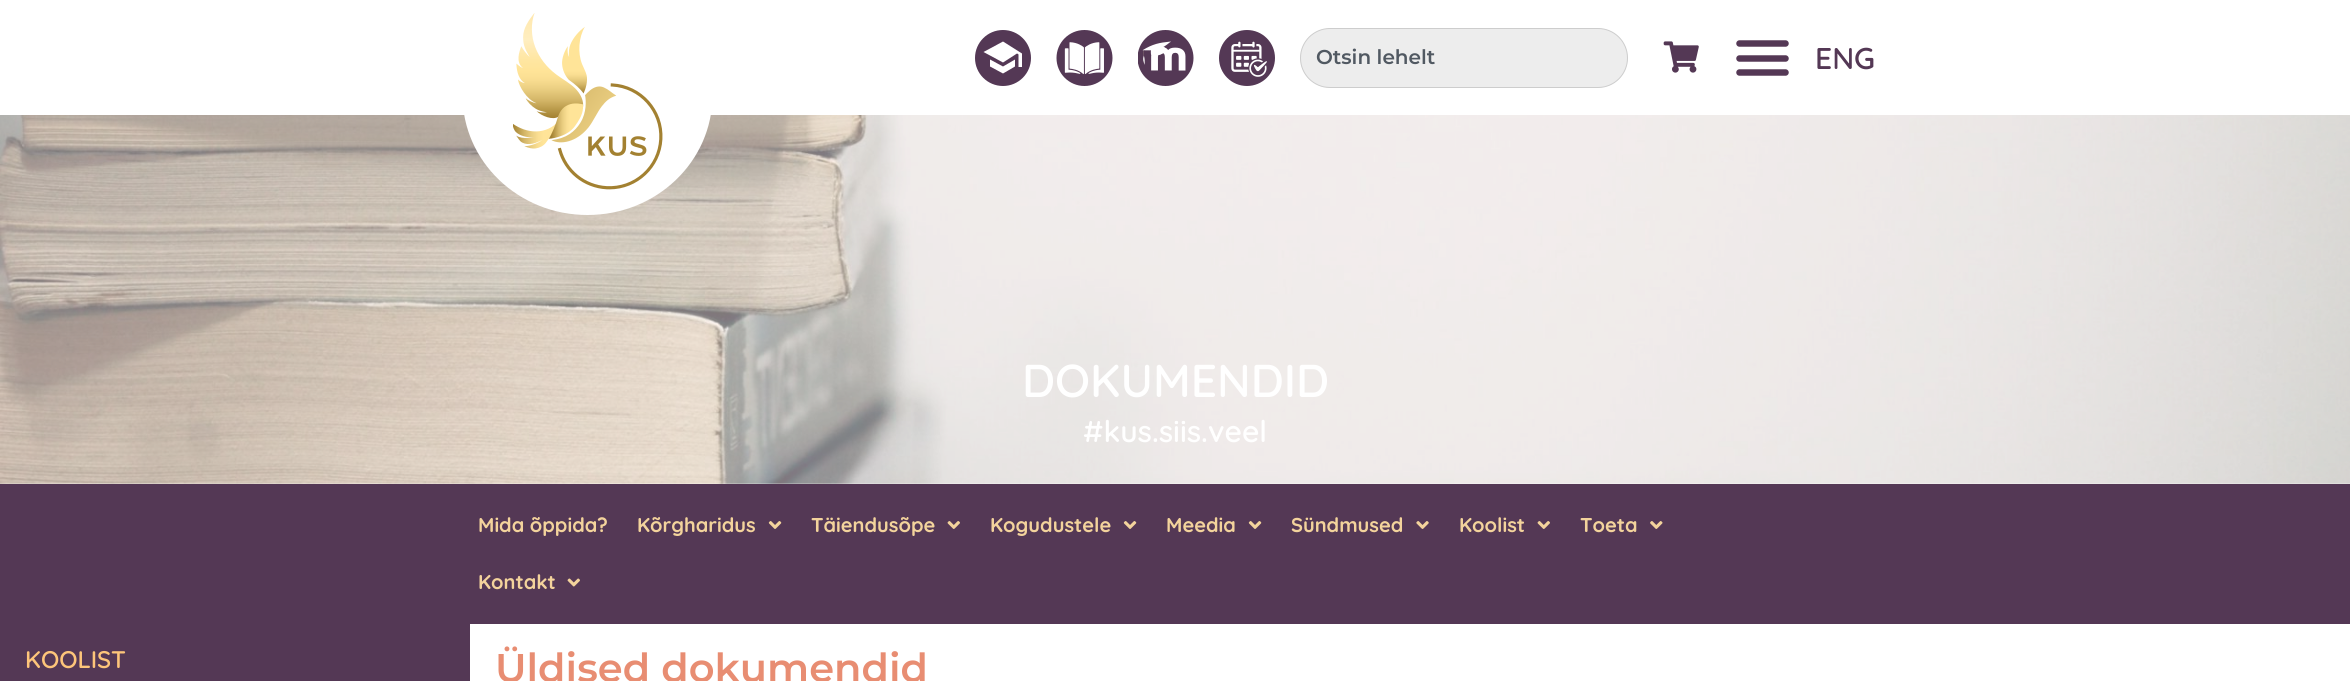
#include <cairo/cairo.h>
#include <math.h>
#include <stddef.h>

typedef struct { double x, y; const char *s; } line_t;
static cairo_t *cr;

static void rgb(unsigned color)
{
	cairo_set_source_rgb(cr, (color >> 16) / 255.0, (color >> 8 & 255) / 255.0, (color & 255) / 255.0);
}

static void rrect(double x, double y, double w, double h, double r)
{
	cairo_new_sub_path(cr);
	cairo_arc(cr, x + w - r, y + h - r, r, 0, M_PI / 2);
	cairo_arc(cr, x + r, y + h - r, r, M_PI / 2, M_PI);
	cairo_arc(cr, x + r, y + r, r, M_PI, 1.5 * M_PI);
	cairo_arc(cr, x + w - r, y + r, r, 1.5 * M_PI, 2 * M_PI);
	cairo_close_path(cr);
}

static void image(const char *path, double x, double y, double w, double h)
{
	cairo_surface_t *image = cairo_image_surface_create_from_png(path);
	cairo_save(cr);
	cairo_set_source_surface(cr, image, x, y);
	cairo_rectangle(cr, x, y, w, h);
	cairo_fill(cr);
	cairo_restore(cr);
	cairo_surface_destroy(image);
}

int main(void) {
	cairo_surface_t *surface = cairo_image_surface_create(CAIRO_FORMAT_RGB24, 2350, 681);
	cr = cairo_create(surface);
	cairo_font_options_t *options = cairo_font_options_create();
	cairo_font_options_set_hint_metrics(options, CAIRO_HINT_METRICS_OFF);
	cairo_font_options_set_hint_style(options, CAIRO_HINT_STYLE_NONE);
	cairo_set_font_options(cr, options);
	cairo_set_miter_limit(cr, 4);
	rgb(0xffffff);
	cairo_paint(cr);
	image("img/6.png", 0, 115, 2350, 369);
	rgb(0xffffff);
	cairo_new_path(cr);
	cairo_move_to(cr, 587.5, -25);
	cairo_curve_to(cr, 656.5, -25, 712.5, 28.5, 712.5, 95);
	cairo_curve_to(cr, 712.5, 161.5, 656.5, 215, 587.5, 215);
	cairo_curve_to(cr, 518.5, 215, 462.5, 161.5, 462.5, 95);
	cairo_curve_to(cr, 462.5, 28.5, 518.5, -25, 587.5, -25);
	cairo_close_path(cr);
	cairo_fill(cr);
	image("img/1.png", 513, 13, 150, 177);
	rgb(0x543855);
	cairo_arc(cr, 1003, 58, 28, 0, 2 * M_PI);
	cairo_fill(cr);
	rgb(0xffffff);
	cairo_new_path(cr);
	cairo_move_to(cr, 1003, 62.5);
	cairo_line_to(cr, 1017, 53.5);
	cairo_line_to(cr, 1018, 54);
	cairo_line_to(cr, 1018.5, 54.5);
	cairo_line_to(cr, 1018.5, 67);
	cairo_line_to(cr, 1022, 67);
	cairo_line_to(cr, 1022, 53.5);
	cairo_line_to(cr, 1003, 41.5);
	cairo_line_to(cr, 983.5, 52);
	cairo_close_path(cr);
	cairo_fill(cr);
	cairo_new_path(cr);
	cairo_move_to(cr, 1015, 66.5);
	cairo_line_to(cr, 1015, 59.5);
	cairo_line_to(cr, 1003, 66.5);
	cairo_line_to(cr, 990, 59.5);
	cairo_line_to(cr, 990, 66.5);
	cairo_line_to(cr, 1003, 73.5);
	cairo_close_path(cr);
	cairo_fill(cr);
	image("img/2.png", 1056, 30, 57, 56);
	image("img/3.png", 1138, 30, 56, 56);
	image("img/4.png", 1219, 30, 56, 56);
	rgb(0xededed);
	rrect(1300.5, 28.5, 327, 59, 29.5);
	cairo_fill_preserve(cr);
	rgb(0xcdcdcd);
	cairo_set_line_width(cr, 1);
	cairo_stroke(cr);
	image("img/5.png", 1663, 41, 36, 32);
	cairo_new_path(cr);
	cairo_move_to(cr, 1739.5, 43.5);
	cairo_line_to(cr, 1785.5, 43.5);
	cairo_move_to(cr, 1739.5, 58.5);
	cairo_line_to(cr, 1785.5, 58.5);
	cairo_move_to(cr, 1739.5, 72.5);
	cairo_line_to(cr, 1785.5, 72.5);
	rgb(0x543855);
	cairo_set_line_width(cr, 6.5);
	cairo_set_line_cap(cr, CAIRO_LINE_CAP_ROUND);
	cairo_stroke(cr);
	cairo_rectangle(cr, 0, 484, 2350, 140);
	cairo_fill(cr);
	image("img/7.png", 768, 521, 14, 8);
	image("img/8.png", 947, 521, 13, 8);
	image("img/7.png", 1123, 521, 14, 8);
	image("img/7.png", 1248, 521, 14, 8);
	image("img/9.png", 1416, 521, 13, 8);
	image("img/8.png", 1537, 521, 13, 8);
	image("img/10.png", 1650, 521, 13, 8);
	image("img/11.png", 567, 578, 13, 9);
	cairo_rectangle(cr, 0, 624, 470, 57);
	cairo_fill(cr);
	cairo_select_font_face(cr, "Montserrat SemiBold", CAIRO_FONT_SLANT_NORMAL, CAIRO_FONT_WEIGHT_NORMAL);
	cairo_set_font_size(cr, 20);
	rgb(0x515962);
	cairo_move_to(cr, 1316, 64);
	cairo_show_text(cr, "Otsin lehelt");
	cairo_select_font_face(cr, "Quicksand SemiBold", CAIRO_FONT_SLANT_NORMAL, CAIRO_FONT_WEIGHT_NORMAL);
	cairo_set_font_size(cr, 30);
	rgb(0x543855);
	cairo_move_to(cr, 1815, 69);
	cairo_show_text(cr, "ENG");
	cairo_set_font_size(cr, 46);
	rgb(0xffffff);
	cairo_move_to(cr, 1022, 397);
	cairo_show_text(cr, "DOKUMENDID");
	cairo_set_font_size(cr, 30);
	cairo_move_to(cr, 1083, 442);
	cairo_show_text(cr, "#kus.siis.veel");
	cairo_select_font_face(cr, "Quicksand", CAIRO_FONT_SLANT_NORMAL, CAIRO_FONT_WEIGHT_BOLD);
	cairo_set_font_size(cr, 20);
	rgb(0xf3d39c);
	{
		static const line_t items[] = {
			{478, 532, "Mida õppida?"},
			{637, 532, "Kõrgharidus"},
			{811, 532, "Täiendusõpe"},
			{990, 532, "Kogudustele"},
			{1166, 532, "Meedia"},
			{1291, 532, "Sündmused"},
			{1459, 532, "Koolist"},
			{1580, 532, "Toeta"},
			{478, 589, "Kontakt"},
		};
		for (size_t i = 0; i < sizeof items / sizeof *items; i++) {
			cairo_move_to(cr, items[i].x, items[i].y);
			cairo_show_text(cr, items[i].s);
		}
	}
	cairo_select_font_face(cr, "Quicksand SemiBold", CAIRO_FONT_SLANT_NORMAL, CAIRO_FONT_WEIGHT_NORMAL);
	cairo_set_font_size(cr, 24);
	rgb(0xfdc57a);
	cairo_move_to(cr, 25, 668);
	cairo_show_text(cr, "KOOLIST");
	cairo_select_font_face(cr, "Montserrat SemiBold", CAIRO_FONT_SLANT_NORMAL, CAIRO_FONT_WEIGHT_NORMAL);
	cairo_set_font_size(cr, 40);
	rgb(0xe88d72);
	cairo_move_to(cr, 495, 682);
	cairo_show_text(cr, "Üldised dokumendid");
	cairo_surface_write_to_png(surface, "page.png");
	cairo_font_options_destroy(options);
	cairo_destroy(cr);
	cairo_surface_destroy(surface);
	return 0;
}
